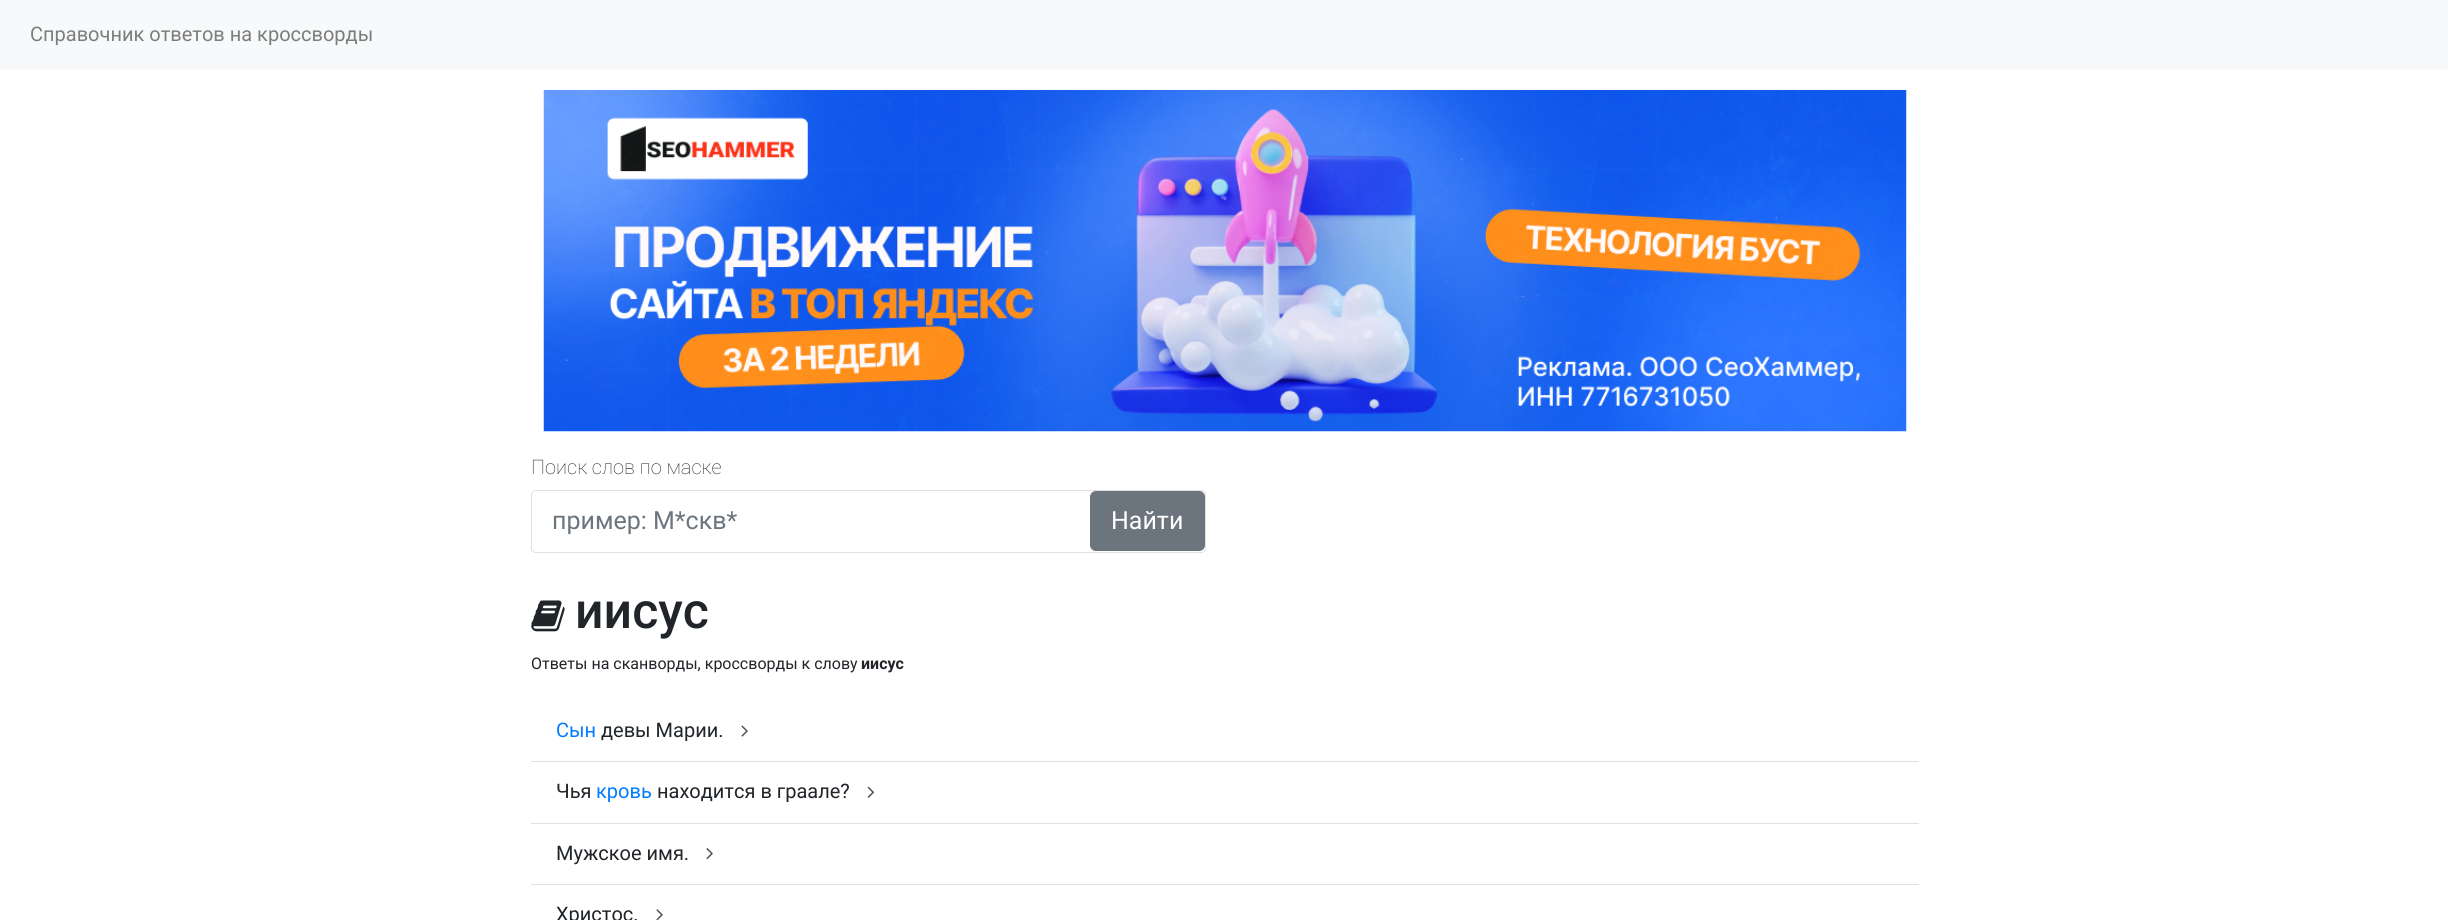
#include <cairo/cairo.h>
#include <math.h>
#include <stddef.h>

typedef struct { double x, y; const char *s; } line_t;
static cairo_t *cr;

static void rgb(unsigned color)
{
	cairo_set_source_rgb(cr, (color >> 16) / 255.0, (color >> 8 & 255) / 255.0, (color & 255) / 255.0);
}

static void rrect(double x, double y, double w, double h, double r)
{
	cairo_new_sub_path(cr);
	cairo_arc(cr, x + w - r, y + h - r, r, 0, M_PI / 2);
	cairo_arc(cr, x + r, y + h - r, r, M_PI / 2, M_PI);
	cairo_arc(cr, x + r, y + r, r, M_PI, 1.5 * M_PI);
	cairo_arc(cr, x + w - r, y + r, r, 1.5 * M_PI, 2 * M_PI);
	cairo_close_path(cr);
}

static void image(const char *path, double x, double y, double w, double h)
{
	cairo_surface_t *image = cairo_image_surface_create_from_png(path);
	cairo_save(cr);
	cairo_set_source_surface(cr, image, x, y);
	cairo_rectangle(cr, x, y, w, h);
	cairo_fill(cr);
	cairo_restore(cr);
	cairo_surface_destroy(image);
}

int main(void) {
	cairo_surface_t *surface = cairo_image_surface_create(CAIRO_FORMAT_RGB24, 2448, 920);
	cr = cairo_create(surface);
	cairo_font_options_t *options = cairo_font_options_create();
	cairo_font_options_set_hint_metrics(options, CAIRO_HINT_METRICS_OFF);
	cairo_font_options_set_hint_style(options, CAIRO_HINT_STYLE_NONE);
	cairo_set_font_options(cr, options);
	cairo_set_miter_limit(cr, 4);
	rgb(0xffffff);
	cairo_paint(cr);
	rgb(0xf8f9fa);
	cairo_rectangle(cr, 0, 0, 2448, 70);
	cairo_fill(cr);
	image("img/1.png", 543, 90, 1364, 342);
	rrect(531.5, 490.5, 674, 62, 4.5);
	rgb(0xdfdfdf);
	cairo_set_line_width(cr, 1);
	cairo_stroke(cr);
	rgb(0x6c757d);
	rrect(1090.5, 491.5, 114, 59, 5.5);
	cairo_fill_preserve(cr);
	cairo_stroke(cr);
	image("img/2.png", 531, 600, 34, 32);
	image("img/3.png", 741, 725, 7, 12);
	rgb(0xdfdfdf);
	cairo_rectangle(cr, 531, 761, 1388, 1);
	cairo_fill(cr);
	image("img/4.png", 867, 786, 8, 12);
	cairo_rectangle(cr, 531, 823, 1388, 1);
	cairo_fill(cr);
	image("img/5.png", 706, 848, 7, 12);
	cairo_rectangle(cr, 531, 884, 1388, 1);
	cairo_fill(cr);
	image("img/6.png", 656, 909, 7, 11);
	cairo_select_font_face(cr, "Roboto", CAIRO_FONT_SLANT_NORMAL, CAIRO_FONT_WEIGHT_NORMAL);
	cairo_set_font_size(cr, 20);
	rgb(0x7c7d7d);
	cairo_move_to(cr, 30, 41);
	cairo_show_text(cr, "Справочник ответов на кроссворды");
	cairo_select_font_face(cr, "Roboto Thin", CAIRO_FONT_SLANT_NORMAL, CAIRO_FONT_WEIGHT_NORMAL);
	rgb(0x212529);
	cairo_move_to(cr, 531, 474);
	cairo_show_text(cr, "Поиск слов по маске");
	cairo_select_font_face(cr, "Roboto", CAIRO_FONT_SLANT_NORMAL, CAIRO_FONT_WEIGHT_NORMAL);
	cairo_set_font_size(cr, 25);
	rgb(0x6c757d);
	cairo_move_to(cr, 552, 529);
	cairo_show_text(cr, "пример: М*скв*");
	rgb(0xffffff);
	cairo_move_to(cr, 1111, 529);
	cairo_show_text(cr, "Найти");
	cairo_select_font_face(cr, "Roboto Medium", CAIRO_FONT_SLANT_NORMAL, CAIRO_FONT_WEIGHT_NORMAL);
	cairo_set_font_size(cr, 50);
	rgb(0x212529);
	cairo_move_to(cr, 575, 628);
	cairo_show_text(cr, "иисус");
	cairo_select_font_face(cr, "Roboto", CAIRO_FONT_SLANT_NORMAL, CAIRO_FONT_WEIGHT_NORMAL);
	cairo_set_font_size(cr, 16);
	cairo_move_to(cr, 531, 669);
	cairo_show_text(cr, "Ответы на сканворды, кроссворды к слову");
	cairo_select_font_face(cr, "Roboto", CAIRO_FONT_SLANT_NORMAL, CAIRO_FONT_WEIGHT_BOLD);
	cairo_move_to(cr, 861, 669);
	cairo_show_text(cr, "иисус");
	cairo_select_font_face(cr, "Roboto", CAIRO_FONT_SLANT_NORMAL, CAIRO_FONT_WEIGHT_NORMAL);
	cairo_set_font_size(cr, 20);
	rgb(0x007bff);
	cairo_move_to(cr, 556, 737);
	cairo_show_text(cr, "Сын");
	rgb(0x212529);
	cairo_move_to(cr, 601, 737);
	cairo_show_text(cr, "девы Марии.");
	cairo_move_to(cr, 556, 798);
	cairo_show_text(cr, "Чья");
	rgb(0x007bff);
	cairo_move_to(cr, 596, 798);
	cairo_show_text(cr, "кровь");
	rgb(0x212529);
	{
		static const line_t items[] = {
			{657, 798, "находится в граале?"},
			{556, 860, "Мужское имя."},
			{556, 921, "Христос."},
		};
		for (size_t i = 0; i < sizeof items / sizeof *items; i++) {
			cairo_move_to(cr, items[i].x, items[i].y);
			cairo_show_text(cr, items[i].s);
		}
	}
	cairo_surface_write_to_png(surface, "page.png");
	cairo_font_options_destroy(options);
	cairo_destroy(cr);
	cairo_surface_destroy(surface);
	return 0;
}
